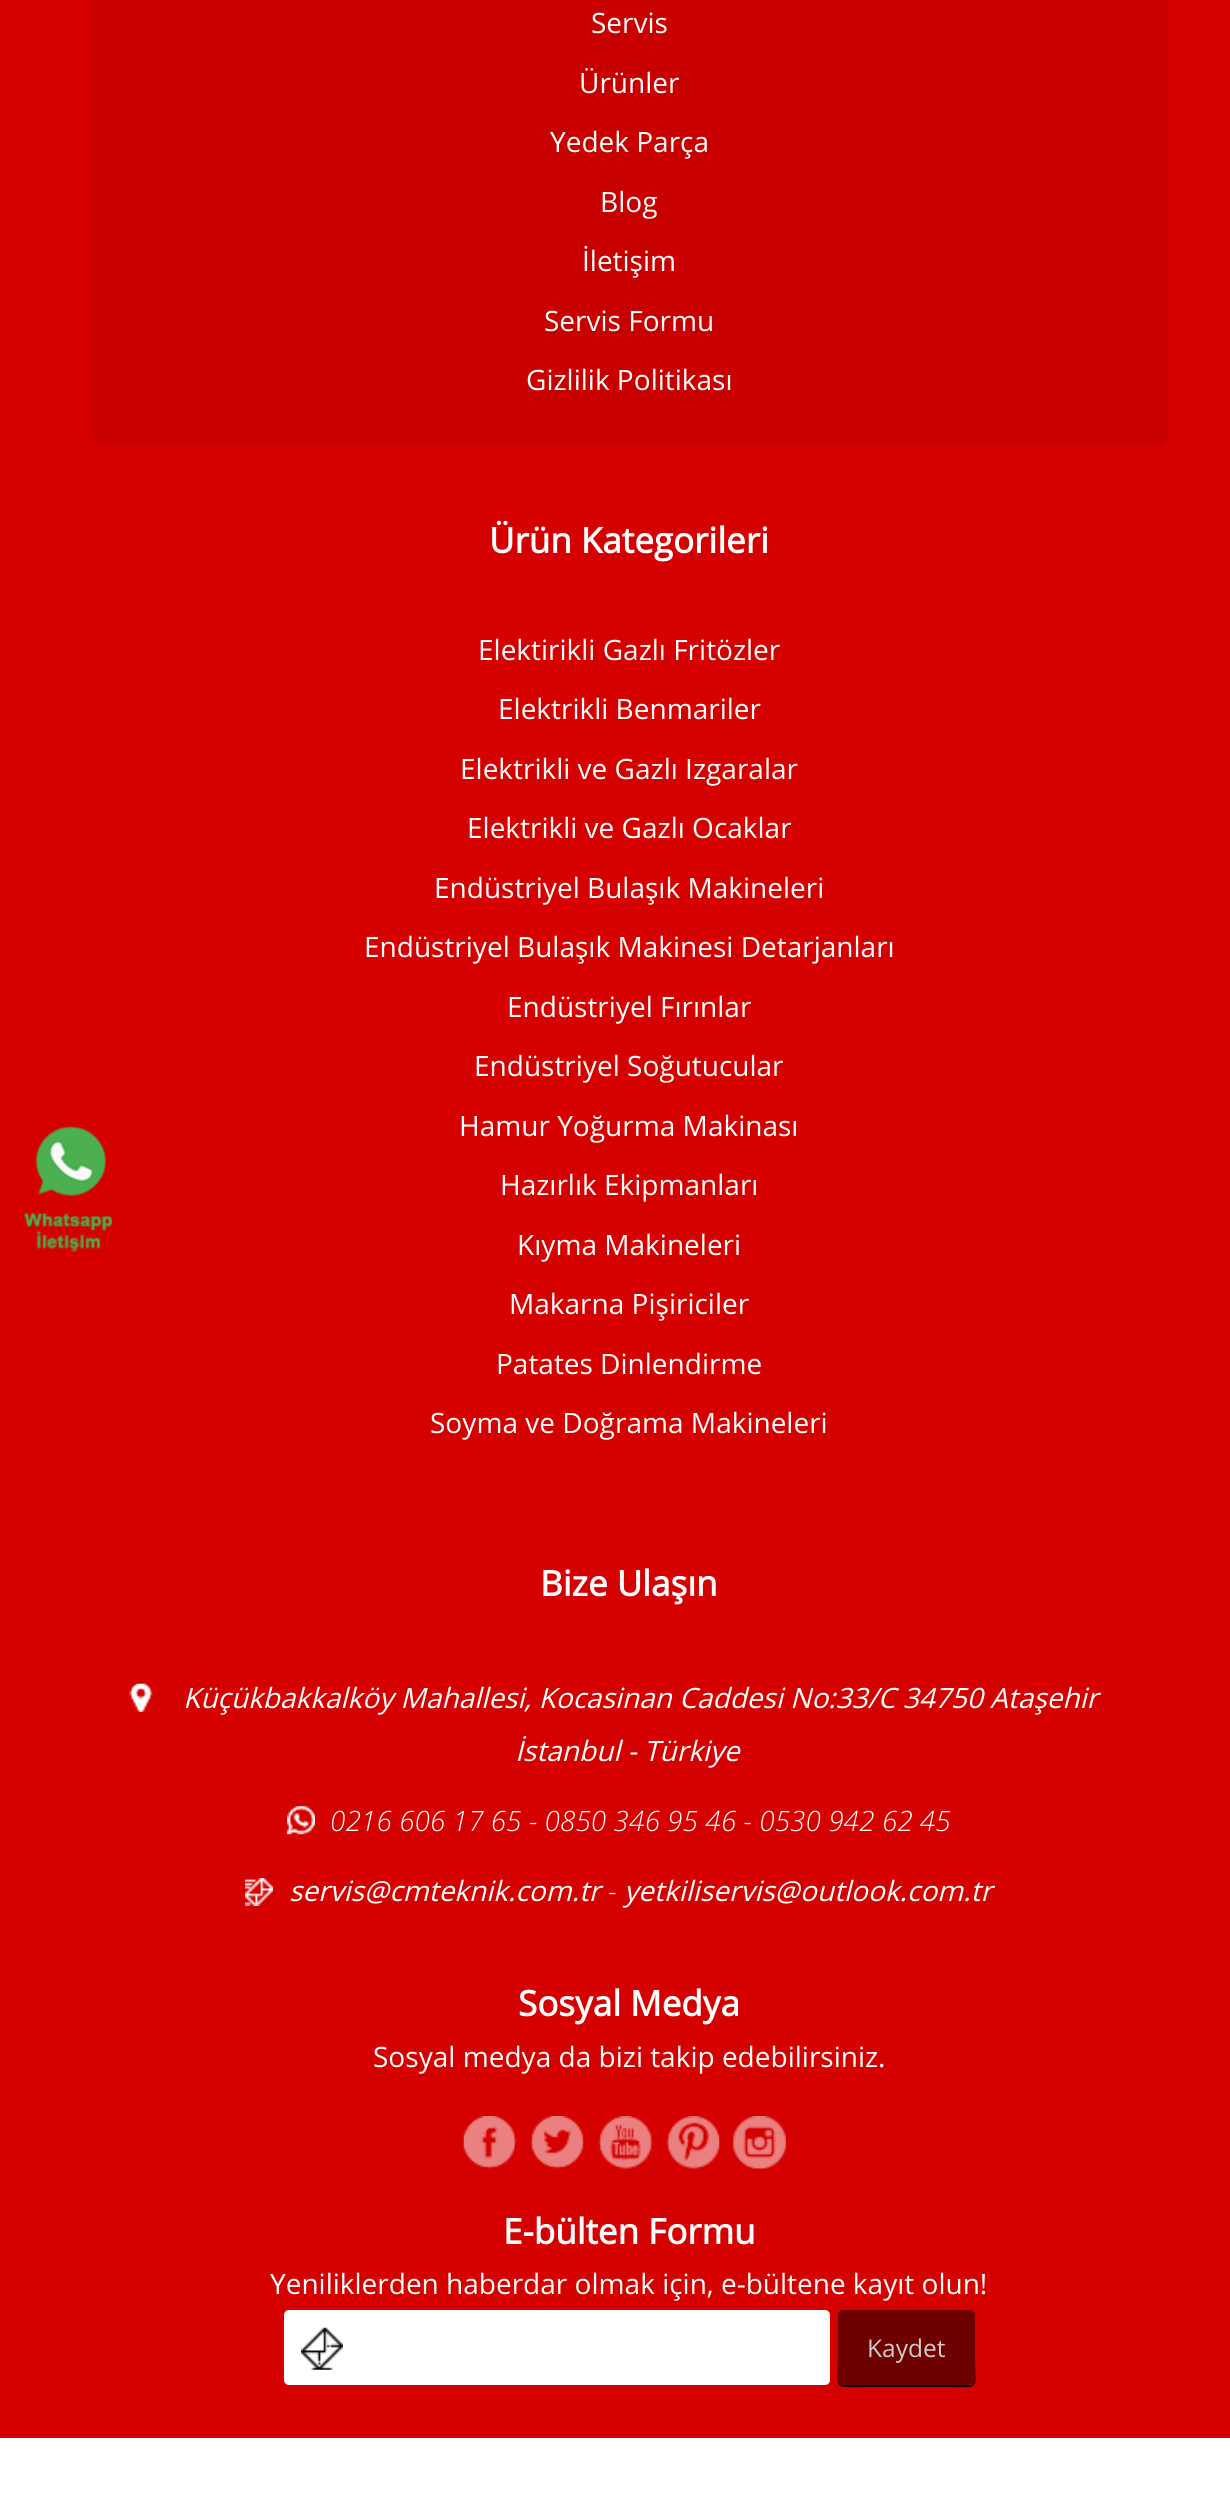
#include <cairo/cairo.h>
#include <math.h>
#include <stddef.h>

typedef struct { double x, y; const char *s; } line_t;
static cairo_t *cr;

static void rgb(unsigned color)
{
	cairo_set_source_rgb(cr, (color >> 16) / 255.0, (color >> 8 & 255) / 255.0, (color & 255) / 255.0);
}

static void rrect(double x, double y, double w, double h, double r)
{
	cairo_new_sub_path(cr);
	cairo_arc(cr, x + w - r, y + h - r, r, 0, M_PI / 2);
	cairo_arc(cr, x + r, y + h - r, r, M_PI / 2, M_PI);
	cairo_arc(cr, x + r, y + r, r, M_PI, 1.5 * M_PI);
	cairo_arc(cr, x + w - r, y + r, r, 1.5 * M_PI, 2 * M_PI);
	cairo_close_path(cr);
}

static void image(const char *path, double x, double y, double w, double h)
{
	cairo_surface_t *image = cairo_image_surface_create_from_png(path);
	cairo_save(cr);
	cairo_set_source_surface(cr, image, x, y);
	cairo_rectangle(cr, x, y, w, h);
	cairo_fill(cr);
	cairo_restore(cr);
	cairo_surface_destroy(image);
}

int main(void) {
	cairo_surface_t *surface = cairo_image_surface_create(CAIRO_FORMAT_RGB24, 1230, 2501);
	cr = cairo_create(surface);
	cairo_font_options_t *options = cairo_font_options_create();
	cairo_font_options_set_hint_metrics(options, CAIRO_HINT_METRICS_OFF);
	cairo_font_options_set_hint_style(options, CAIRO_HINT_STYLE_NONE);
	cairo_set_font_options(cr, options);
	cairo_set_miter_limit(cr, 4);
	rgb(0xffffff);
	cairo_paint(cr);
	rgb(0xd50000);
	cairo_rectangle(cr, 0, 0, 1230, 2438);
	cairo_fill(cr);
	image("img/1.png", 24, 1126, 89, 126);
	rgb(0xc90000);
	cairo_new_path(cr);
	cairo_move_to(cr, 91, -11);
	cairo_line_to(cr, 1169, -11);
	cairo_line_to(cr, 1169, 434);
	cairo_curve_to(cr, 1169, 440, 1164, 445, 1158, 445);
	cairo_line_to(cr, 102, 445);
	cairo_curve_to(cr, 96, 445, 91, 440, 91, 434);
	cairo_close_path(cr);
	cairo_fill(cr);
	image("img/2.png", 129, 1683, 24, 29);
	image("img/3.png", 287, 1806, 28, 29);
	image("img/4.png", 245, 1878, 28, 28);
	image("img/5.png", 463, 2116, 54, 53);
	image("img/6.png", 530, 2116, 55, 53);
	image("img/7.png", 598, 2116, 55, 53);
	image("img/8.png", 666, 2116, 54, 53);
	image("img/9.png", 732, 2116, 54, 53);
	rgb(0xffffff);
	rrect(284, 2310, 546, 75, 5);
	cairo_fill(cr);
	image("img/10.png", 301, 2327, 42, 43);
	rgb(0x150000);
	cairo_new_path(cr);
	cairo_move_to(cr, 838, 2315);
	cairo_line_to(cr, 838, 2360);
	cairo_curve_to(cr, 838, 2391, 832, 2387, 864, 2387);
	cairo_line_to(cr, 949, 2387);
	cairo_curve_to(cr, 981, 2387, 975, 2391, 975, 2360);
	cairo_line_to(cr, 975, 2315);
	cairo_line_to(cr, 975, 2380);
	cairo_curve_to(cr, 975, 2383, 972, 2385, 970, 2385);
	cairo_line_to(cr, 844, 2385);
	cairo_curve_to(cr, 841, 2385, 838, 2383, 838, 2380);
	cairo_close_path(cr);
	cairo_fill(cr);
	rgb(0x6f0000);
	rrect(838, 2310, 137, 75, 5);
	cairo_fill(cr);
	cairo_select_font_face(cr, "Open Sans", CAIRO_FONT_SLANT_NORMAL, CAIRO_FONT_WEIGHT_NORMAL);
	cairo_set_font_size(cr, 28);
	rgb(0xffffff);
	{
		static const line_t items[] = {
			{591, 33, "Servis"},
			{579, 93, "Ürünler"},
			{550, 152, "Yedek Parça"},
			{600, 212, "Blog"},
			{582, 271, "İletişim"},
			{544, 331, "Servis Formu"},
			{526, 390, "Gizlilik Politikası"},
		};
		for (size_t i = 0; i < sizeof items / sizeof *items; i++) {
			cairo_move_to(cr, items[i].x, items[i].y);
			cairo_show_text(cr, items[i].s);
		}
	}
	cairo_select_font_face(cr, "Open Sans", CAIRO_FONT_SLANT_NORMAL, CAIRO_FONT_WEIGHT_BOLD);
	cairo_set_font_size(cr, 35);
	cairo_move_to(cr, 489, 553);
	cairo_show_text(cr, "Ürün Kategorileri");
	cairo_select_font_face(cr, "Open Sans", CAIRO_FONT_SLANT_NORMAL, CAIRO_FONT_WEIGHT_NORMAL);
	cairo_set_font_size(cr, 28);
	{
		static const line_t items[] = {
			{478, 660, "Elektirikli Gazlı Fritözler"},
			{498, 719, "Elektrikli Benmariler"},
			{460, 779, "Elektrikli ve Gazlı Izgaralar"},
			{467, 838, "Elektrikli ve Gazlı Ocaklar"},
			{434, 898, "Endüstriyel Bulaşık Makineleri"},
			{364, 957, "Endüstriyel Bulaşık Makinesi Detarjanları"},
			{507, 1017, "Endüstriyel Fırınlar"},
			{474, 1076, "Endüstriyel Soğutucular"},
			{459, 1136, "Hamur Yoğurma Makinası"},
			{500, 1195, "Hazırlık Ekipmanları"},
			{517, 1255, "Kıyma Makineleri"},
			{509, 1314, "Makarna Pişiriciler"},
			{496, 1374, "Patates Dinlendirme"},
			{430, 1433, "Soyma ve Doğrama Makineleri"},
		};
		for (size_t i = 0; i < sizeof items / sizeof *items; i++) {
			cairo_move_to(cr, items[i].x, items[i].y);
			cairo_show_text(cr, items[i].s);
		}
	}
	cairo_select_font_face(cr, "Open Sans", CAIRO_FONT_SLANT_NORMAL, CAIRO_FONT_WEIGHT_BOLD);
	cairo_set_font_size(cr, 35);
	cairo_move_to(cr, 540, 1596);
	cairo_show_text(cr, "Bize Ulaşın");
	cairo_select_font_face(cr, "Open Sans", CAIRO_FONT_SLANT_ITALIC, CAIRO_FONT_WEIGHT_NORMAL);
	cairo_set_font_size(cr, 28);
	cairo_move_to(cr, 183, 1708);
	cairo_show_text(cr, "Küçükbakkalköy Mahallesi, Kocasinan Caddesi No:33/C 34750 Ataşehir");
	cairo_move_to(cr, 515, 1761);
	cairo_show_text(cr, "İstanbul - Türkiye");
	cairo_select_font_face(cr, "Open Sans Light", CAIRO_FONT_SLANT_ITALIC, CAIRO_FONT_WEIGHT_NORMAL);
	cairo_move_to(cr, 330, 1831);
	cairo_show_text(cr, "0216 606 17 65 - 0850 346 95 46 - 0530 942 62 45");
	cairo_select_font_face(cr, "Open Sans", CAIRO_FONT_SLANT_ITALIC, CAIRO_FONT_WEIGHT_NORMAL);
	cairo_move_to(cr, 289, 1901);
	cairo_show_text(cr, "servis@cmteknik.com.tr");
	cairo_select_font_face(cr, "Open Sans Light", CAIRO_FONT_SLANT_ITALIC, CAIRO_FONT_WEIGHT_NORMAL);
	cairo_move_to(cr, 608, 1901);
	cairo_show_text(cr, "-");
	cairo_select_font_face(cr, "Open Sans", CAIRO_FONT_SLANT_ITALIC, CAIRO_FONT_WEIGHT_NORMAL);
	cairo_move_to(cr, 624, 1901);
	cairo_show_text(cr, "yetkiliservis@outlook.com.tr");
	cairo_select_font_face(cr, "Open Sans", CAIRO_FONT_SLANT_NORMAL, CAIRO_FONT_WEIGHT_BOLD);
	cairo_set_font_size(cr, 35);
	cairo_move_to(cr, 518, 2016);
	cairo_show_text(cr, "Sosyal Medya");
	cairo_select_font_face(cr, "Open Sans", CAIRO_FONT_SLANT_NORMAL, CAIRO_FONT_WEIGHT_NORMAL);
	cairo_set_font_size(cr, 28);
	cairo_move_to(cr, 373, 2067);
	cairo_show_text(cr, "Sosyal medya da bizi takip edebilirsiniz.");
	cairo_select_font_face(cr, "Open Sans", CAIRO_FONT_SLANT_NORMAL, CAIRO_FONT_WEIGHT_BOLD);
	cairo_set_font_size(cr, 35);
	cairo_move_to(cr, 503, 2244);
	cairo_show_text(cr, "E-bülten Formu");
	cairo_select_font_face(cr, "Open Sans", CAIRO_FONT_SLANT_NORMAL, CAIRO_FONT_WEIGHT_NORMAL);
	cairo_set_font_size(cr, 28);
	cairo_move_to(cr, 270, 2294);
	cairo_show_text(cr, "Yeniliklerden haberdar olmak için, e-bültene kayıt olun!");
	cairo_set_font_size(cr, 24.5);
	rgb(0xcccccc);
	cairo_move_to(cr, 867, 2357);
	cairo_show_text(cr, "Kaydet");
	cairo_surface_write_to_png(surface, "page.png");
	cairo_font_options_destroy(options);
	cairo_destroy(cr);
	cairo_surface_destroy(surface);
	return 0;
}
